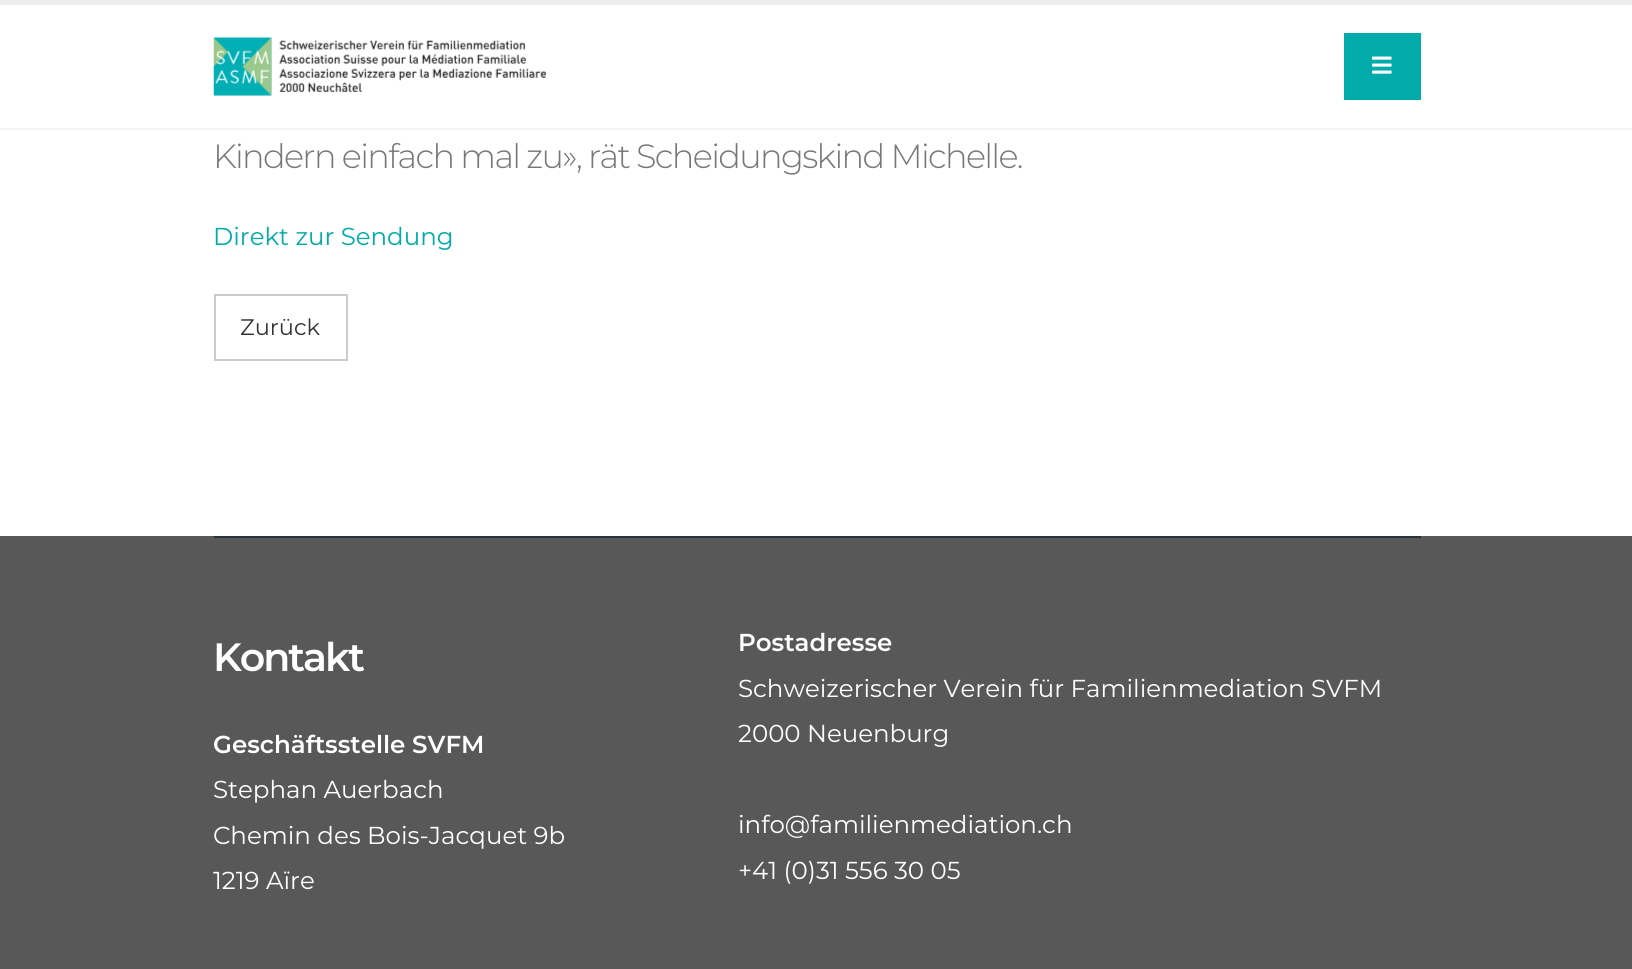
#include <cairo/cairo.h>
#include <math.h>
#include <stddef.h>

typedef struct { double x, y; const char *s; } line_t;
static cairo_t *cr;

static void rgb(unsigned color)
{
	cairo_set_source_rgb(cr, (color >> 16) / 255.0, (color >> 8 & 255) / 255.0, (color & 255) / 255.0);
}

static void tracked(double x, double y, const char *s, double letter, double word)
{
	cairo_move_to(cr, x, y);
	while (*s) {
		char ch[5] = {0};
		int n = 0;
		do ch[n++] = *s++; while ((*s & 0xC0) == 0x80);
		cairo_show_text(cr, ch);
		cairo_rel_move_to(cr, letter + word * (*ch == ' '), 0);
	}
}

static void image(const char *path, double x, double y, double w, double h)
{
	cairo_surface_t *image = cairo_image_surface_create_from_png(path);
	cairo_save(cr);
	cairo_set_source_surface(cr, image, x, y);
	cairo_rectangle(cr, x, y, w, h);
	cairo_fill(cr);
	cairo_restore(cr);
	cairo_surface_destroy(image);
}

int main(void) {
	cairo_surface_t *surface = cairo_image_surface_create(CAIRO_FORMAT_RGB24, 1632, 969);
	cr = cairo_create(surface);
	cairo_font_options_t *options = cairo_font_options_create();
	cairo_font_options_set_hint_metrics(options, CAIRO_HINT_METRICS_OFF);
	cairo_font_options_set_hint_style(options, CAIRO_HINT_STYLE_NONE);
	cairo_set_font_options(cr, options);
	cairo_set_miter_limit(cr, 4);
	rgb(0xffffff);
	cairo_paint(cr);
	rgb(0xededed);
	cairo_rectangle(cr, 0, 0, 1632, 5);
	cairo_fill(cr);
	rgb(0xf5f5f5);
	cairo_rectangle(cr, 0, 128, 1632, 2);
	cairo_fill(cr);
	image("img/1.png", 213, 36, 333, 60);
	rgb(0x00abaa);
	cairo_rectangle(cr, 1344, 33, 77, 67);
	cairo_fill(cr);
	image("img/2.png", 1372, 56, 20, 18);
	cairo_rectangle(cr, 215, 295, 132, 65);
	rgb(0xcccccc);
	cairo_stroke(cr);
	rgb(0x585858);
	cairo_rectangle(cr, 0, 536, 1632, 433);
	cairo_fill(cr);
	rgb(0x2a3040);
	cairo_rectangle(cr, 214, 536, 1207, 2);
	cairo_fill(cr);
	cairo_select_font_face(cr, "Montserrat Light", CAIRO_FONT_SLANT_NORMAL, CAIRO_FONT_WEIGHT_NORMAL);
	cairo_set_font_size(cr, 33.6);
	rgb(0x777777);
	tracked(213, 168, "Kindern einfach mal zu», rät Scheidungskind Michelle.", -1.68, 0);
	cairo_select_font_face(cr, "Montserrat", CAIRO_FONT_SLANT_NORMAL, CAIRO_FONT_WEIGHT_NORMAL);
	cairo_set_font_size(cr, 24.5);
	rgb(0x00abaa);
	cairo_move_to(cr, 213, 245);
	cairo_show_text(cr, "Direkt zur Sendung");
	cairo_set_font_size(cr, 22.5);
	rgb(0x333333);
	cairo_move_to(cr, 240, 335);
	cairo_show_text(cr, "Zurück");
	cairo_select_font_face(cr, "Montserrat SemiBold", CAIRO_FONT_SLANT_NORMAL, CAIRO_FONT_WEIGHT_NORMAL);
	cairo_set_font_size(cr, 39.5);
	rgb(0xffffff);
	tracked(213, 671, "Kontakt", -2, 0);
	cairo_set_font_size(cr, 24.5);
	cairo_move_to(cr, 213, 753);
	cairo_show_text(cr, "Geschäftsstelle SVFM");
	cairo_select_font_face(cr, "Montserrat", CAIRO_FONT_SLANT_NORMAL, CAIRO_FONT_WEIGHT_NORMAL);
	{
		static const line_t items[] = {
			{213, 798, "Stephan Auerbach"},
			{213, 844, "Chemin des Bois-Jacquet 9b"},
			{213, 889, "1219 Aïre"},
		};
		for (size_t i = 0; i < sizeof items / sizeof *items; i++) {
			cairo_move_to(cr, items[i].x, items[i].y);
			cairo_show_text(cr, items[i].s);
		}
	}
	cairo_select_font_face(cr, "Montserrat SemiBold", CAIRO_FONT_SLANT_NORMAL, CAIRO_FONT_WEIGHT_NORMAL);
	cairo_move_to(cr, 738, 651);
	cairo_show_text(cr, "Postadresse");
	cairo_select_font_face(cr, "Montserrat", CAIRO_FONT_SLANT_NORMAL, CAIRO_FONT_WEIGHT_NORMAL);
	{
		static const line_t items[] = {
			{738, 697, "Schweizerischer Verein für Familienmediation SVFM"},
			{738, 742, "2000 Neuenburg"},
			{738, 833, "info@familienmediation.ch"},
			{738, 879, "+41 (0)31 556 30 05"},
		};
		for (size_t i = 0; i < sizeof items / sizeof *items; i++) {
			cairo_move_to(cr, items[i].x, items[i].y);
			cairo_show_text(cr, items[i].s);
		}
	}
	cairo_surface_write_to_png(surface, "page.png");
	cairo_font_options_destroy(options);
	cairo_destroy(cr);
	cairo_surface_destroy(surface);
	return 0;
}
